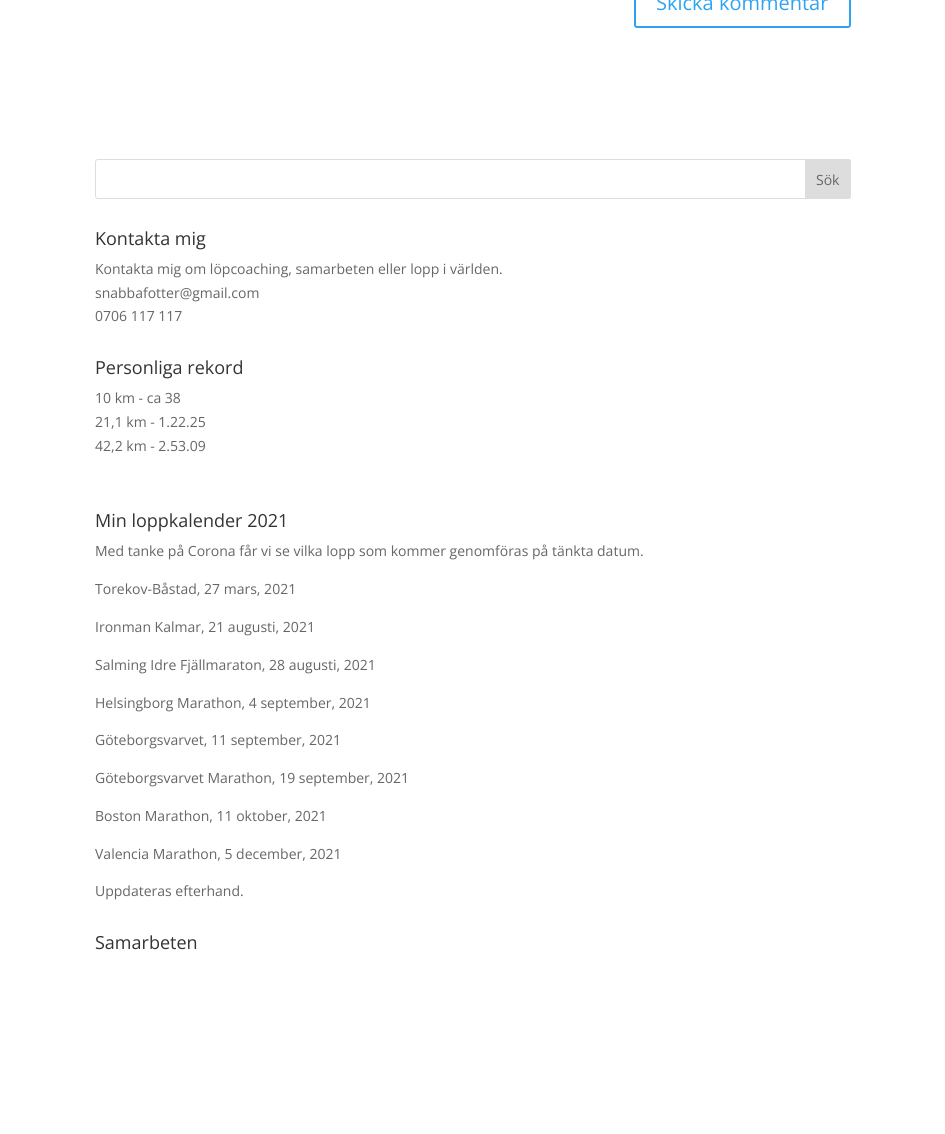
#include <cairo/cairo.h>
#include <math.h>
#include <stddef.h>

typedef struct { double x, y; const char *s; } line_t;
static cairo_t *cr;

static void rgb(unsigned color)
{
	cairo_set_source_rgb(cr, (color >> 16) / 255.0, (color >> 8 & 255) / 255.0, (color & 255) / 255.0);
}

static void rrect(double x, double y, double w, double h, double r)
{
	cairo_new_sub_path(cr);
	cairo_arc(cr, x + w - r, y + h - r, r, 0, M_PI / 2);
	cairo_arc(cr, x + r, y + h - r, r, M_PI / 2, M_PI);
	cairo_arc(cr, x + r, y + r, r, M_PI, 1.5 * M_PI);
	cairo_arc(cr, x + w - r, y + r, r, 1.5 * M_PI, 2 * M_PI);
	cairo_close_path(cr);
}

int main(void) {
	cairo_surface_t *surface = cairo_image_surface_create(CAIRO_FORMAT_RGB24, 945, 1134);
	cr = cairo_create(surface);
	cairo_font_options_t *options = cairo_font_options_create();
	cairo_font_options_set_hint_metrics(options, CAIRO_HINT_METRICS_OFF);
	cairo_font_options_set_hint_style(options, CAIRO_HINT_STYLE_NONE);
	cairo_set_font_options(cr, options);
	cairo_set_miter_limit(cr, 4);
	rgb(0xffffff);
	cairo_paint(cr);
	rrect(635, -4, 215, 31, 2);
	rgb(0x2ea3f2);
	cairo_stroke(cr);
	rrect(95.5, 159.5, 755, 39, 2.5);
	rgb(0xdddddd);
	cairo_set_line_width(cr, 1);
	cairo_stroke(cr);
	cairo_new_path(cr);
	cairo_move_to(cr, 805.5, 159.5);
	cairo_line_to(cr, 848, 159.5);
	cairo_curve_to(cr, 849.5, 159.5, 850.5, 160.5, 850.5, 162);
	cairo_line_to(cr, 850.5, 196);
	cairo_curve_to(cr, 850.5, 197.5, 849.5, 198.5, 848, 198.5);
	cairo_line_to(cr, 805.5, 198.5);
	cairo_close_path(cr);
	cairo_fill_preserve(cr);
	cairo_stroke(cr);
	cairo_select_font_face(cr, "Open Sans", CAIRO_FONT_SLANT_NORMAL, CAIRO_FONT_WEIGHT_NORMAL);
	cairo_set_font_size(cr, 20);
	rgb(0x2ea3f2);
	cairo_move_to(cr, 656, 10);
	cairo_show_text(cr, "Skicka kommentar");
	cairo_set_font_size(cr, 14);
	rgb(0x666666);
	cairo_move_to(cr, 816, 185);
	cairo_show_text(cr, "Sök");
	cairo_set_font_size(cr, 18);
	rgb(0x333333);
	cairo_move_to(cr, 95, 245);
	cairo_show_text(cr, "Kontakta mig");
	cairo_set_font_size(cr, 14);
	rgb(0x666666);
	{
		static const line_t items[] = {
			{95, 274, "Kontakta mig om löpcoaching, samarbeten eller lopp i världen."},
			{95, 298, "snabbafotter@gmail.com"},
			{95, 321, "0706 117 117"},
		};
		for (size_t i = 0; i < sizeof items / sizeof *items; i++) {
			cairo_move_to(cr, items[i].x, items[i].y);
			cairo_show_text(cr, items[i].s);
		}
	}
	cairo_set_font_size(cr, 18);
	rgb(0x333333);
	cairo_move_to(cr, 95, 374);
	cairo_show_text(cr, "Personliga rekord");
	cairo_set_font_size(cr, 14);
	rgb(0x666666);
	{
		static const line_t items[] = {
			{95, 403, "10 km - ca 38"},
			{95, 427, "21,1 km - 1.22.25"},
			{95, 451, "42,2 km - 2.53.09"},
		};
		for (size_t i = 0; i < sizeof items / sizeof *items; i++) {
			cairo_move_to(cr, items[i].x, items[i].y);
			cairo_show_text(cr, items[i].s);
		}
	}
	cairo_set_font_size(cr, 18);
	rgb(0x333333);
	cairo_move_to(cr, 95, 527);
	cairo_show_text(cr, "Min loppkalender 2021");
	cairo_set_font_size(cr, 14);
	rgb(0x666666);
	{
		static const line_t items[] = {
			{95, 556, "Med tanke på Corona får vi se vilka lopp som kommer genomföras på tänkta datum."},
			{95, 594, "Torekov-Båstad, 27 mars, 2021"},
			{95, 632, "Ironman Kalmar, 21 augusti, 2021"},
			{95, 670, "Salming Idre Fjällmaraton, 28 augusti, 2021"},
			{95, 708, "Helsingborg Marathon, 4 september, 2021"},
			{95, 745, "Göteborgsvarvet, 11 september, 2021"},
			{95, 783, "Göteborgsvarvet Marathon, 19 september, 2021"},
			{95, 821, "Boston Marathon, 11 oktober, 2021"},
			{95, 859, "Valencia Marathon, 5 december, 2021"},
			{95, 896, "Uppdateras efterhand."},
		};
		for (size_t i = 0; i < sizeof items / sizeof *items; i++) {
			cairo_move_to(cr, items[i].x, items[i].y);
			cairo_show_text(cr, items[i].s);
		}
	}
	cairo_set_font_size(cr, 18);
	rgb(0x333333);
	cairo_move_to(cr, 95, 949);
	cairo_show_text(cr, "Samarbeten");
	cairo_surface_write_to_png(surface, "page.png");
	cairo_font_options_destroy(options);
	cairo_destroy(cr);
	cairo_surface_destroy(surface);
	return 0;
}
